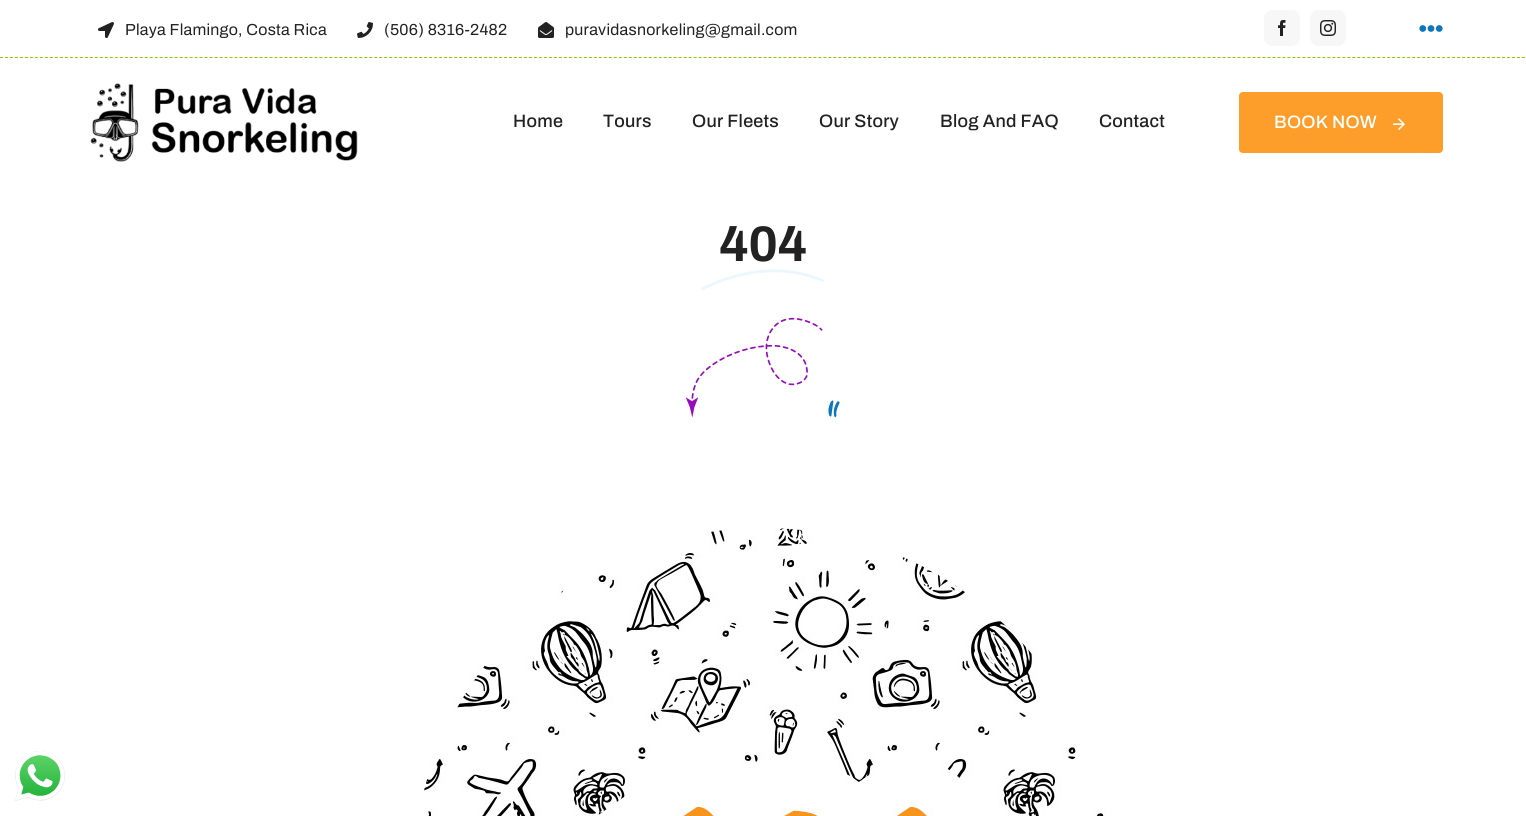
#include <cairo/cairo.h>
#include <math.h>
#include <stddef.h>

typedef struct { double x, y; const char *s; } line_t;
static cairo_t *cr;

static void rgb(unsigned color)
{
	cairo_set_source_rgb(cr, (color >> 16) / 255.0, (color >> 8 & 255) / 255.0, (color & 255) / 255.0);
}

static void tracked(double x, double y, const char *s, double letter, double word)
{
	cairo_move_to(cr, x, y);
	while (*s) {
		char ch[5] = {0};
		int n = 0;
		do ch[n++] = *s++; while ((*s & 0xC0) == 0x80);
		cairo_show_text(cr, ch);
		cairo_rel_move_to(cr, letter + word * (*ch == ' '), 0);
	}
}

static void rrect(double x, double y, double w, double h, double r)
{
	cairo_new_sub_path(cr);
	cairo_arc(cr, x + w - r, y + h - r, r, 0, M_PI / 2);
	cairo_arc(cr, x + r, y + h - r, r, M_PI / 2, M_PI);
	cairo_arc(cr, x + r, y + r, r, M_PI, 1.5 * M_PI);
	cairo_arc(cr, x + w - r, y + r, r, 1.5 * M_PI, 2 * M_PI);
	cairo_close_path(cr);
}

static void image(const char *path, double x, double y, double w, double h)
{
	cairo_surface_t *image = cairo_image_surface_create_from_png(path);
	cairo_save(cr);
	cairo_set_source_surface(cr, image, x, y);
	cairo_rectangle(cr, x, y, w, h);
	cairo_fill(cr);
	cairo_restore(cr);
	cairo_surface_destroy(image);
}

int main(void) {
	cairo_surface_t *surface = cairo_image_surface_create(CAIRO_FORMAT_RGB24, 1526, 816);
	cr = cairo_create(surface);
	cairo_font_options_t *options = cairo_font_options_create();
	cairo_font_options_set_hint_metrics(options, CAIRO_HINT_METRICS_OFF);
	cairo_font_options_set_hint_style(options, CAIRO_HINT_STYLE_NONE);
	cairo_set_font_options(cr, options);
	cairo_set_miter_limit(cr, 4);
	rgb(0xffffff);
	cairo_paint(cr);
	cairo_new_path(cr);
	cairo_move_to(cr, 0, 57.5);
	cairo_line_to(cr, 1526, 57.5);
	rgb(0x8bca02);
	cairo_set_line_width(cr, 1);
	cairo_set_dash(cr, (double[]){3, 1.99}, 2, 0);
	cairo_stroke(cr);
	image("img/1.png", 98, 22, 16, 16);
	image("img/2.png", 357, 22, 16, 16);
	image("img/3.png", 538, 22, 16, 16);
	rgb(0xf7f7f7);
	rrect(1264, 10, 36, 36, 8);
	cairo_fill(cr);
	image("img/4.png", 1278, 20, 8, 16);
	rrect(1310, 10, 36, 36, 8);
	cairo_fill(cr);
	image("img/5.png", 1320, 20, 16, 16);
	image("img/6.png", 1419, 25, 24, 7);
	image("img/7.png", 90, 83, 268, 79);
	rgb(0xfd9d2a);
	rrect(1239, 92, 204, 61, 4);
	cairo_fill(cr);
	image("img/8.png", 1393, 118, 12, 12);
	cairo_new_path(cr);
	cairo_move_to(cr, 702.5, 289);
	cairo_curve_to(cr, 702.5, 289, 762.5, 254.5, 822.5, 280.5);
	rgb(0xebf7ff);
	cairo_set_line_width(cr, 2.8);
	cairo_set_line_cap(cr, CAIRO_LINE_CAP_ROUND);
	cairo_set_line_join(cr, CAIRO_LINE_JOIN_ROUND);
	cairo_set_dash(cr, NULL, 0, 0);
	cairo_stroke(cr);
	image("img/9.png", 686, 317, 154, 101);
	image("img/10.png", 421, 528, 686, 288);
	image("img/11.png", 15, 751, 50, 50);
	cairo_select_font_face(cr, "Archivo", CAIRO_FONT_SLANT_NORMAL, CAIRO_FONT_WEIGHT_NORMAL);
	cairo_set_font_size(cr, 16);
	rgb(0x222222);
	{
		static const line_t items[] = {
			{125, 35, "Playa Flamingo, Costa Rica"},
			{384, 35, "(506) 8316-2482"},
			{565, 35, "puravidasnorkeling@gmail.com"},
		};
		for (size_t i = 0; i < sizeof items / sizeof *items; i++) {
			tracked(items[i].x, items[i].y, items[i].s, 0.25, 0);
		}
	}
	cairo_select_font_face(cr, "Archivo Medium", CAIRO_FONT_SLANT_NORMAL, CAIRO_FONT_WEIGHT_NORMAL);
	cairo_set_font_size(cr, 18);
	{
		static const line_t items[] = {
			{513, 127, "Home"},
			{603, 127, "Tours"},
			{692, 127, "Our Fleets"},
			{819, 127, "Our Story"},
			{940, 127, "Blog And FAQ"},
			{1099, 127, "Contact"},
		};
		for (size_t i = 0; i < sizeof items / sizeof *items; i++) {
			tracked(items[i].x, items[i].y, items[i].s, 0.25, 0);
		}
	}
	rgb(0xffffff);
	tracked(1274, 128, "BOOK NOW", 0.25, 0);
	cairo_select_font_face(cr, "Archivo", CAIRO_FONT_SLANT_NORMAL, CAIRO_FONT_WEIGHT_BOLD);
	cairo_set_font_size(cr, 50);
	rgb(0x222222);
	tracked(719, 261, "404", -0.5, 0);
	cairo_surface_write_to_png(surface, "page.png");
	cairo_font_options_destroy(options);
	cairo_destroy(cr);
	cairo_surface_destroy(surface);
	return 0;
}
